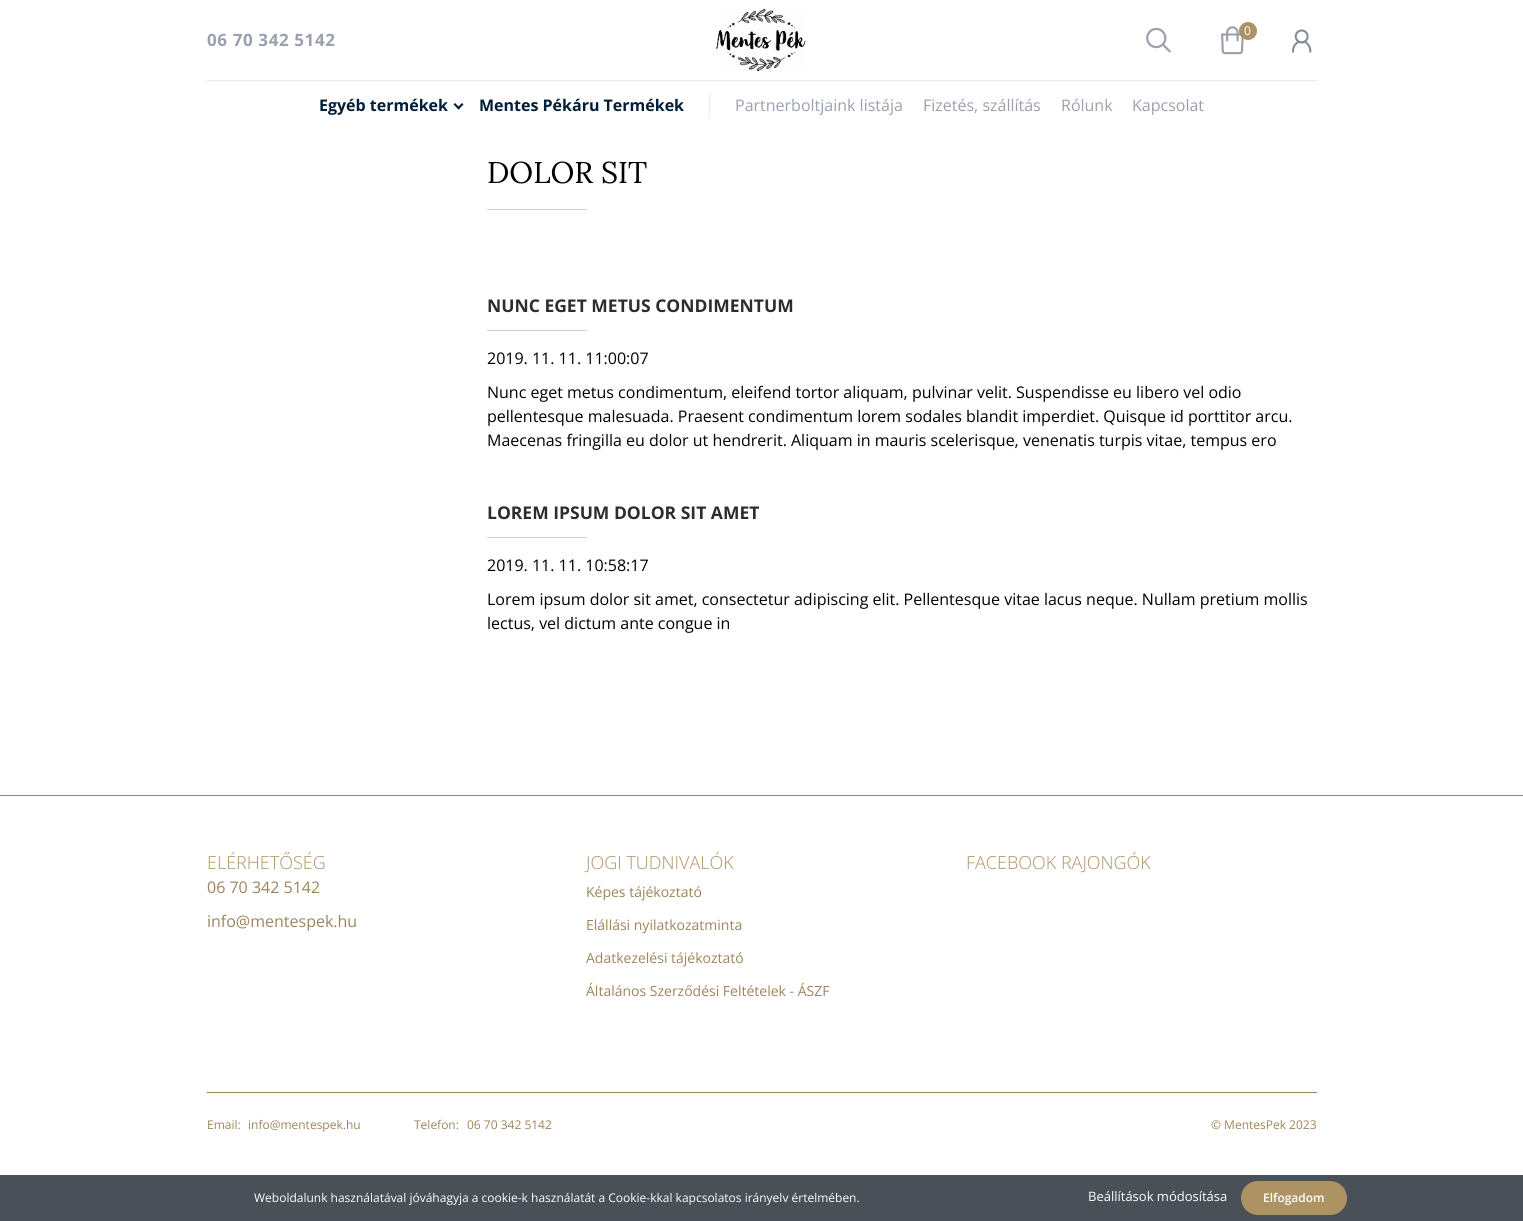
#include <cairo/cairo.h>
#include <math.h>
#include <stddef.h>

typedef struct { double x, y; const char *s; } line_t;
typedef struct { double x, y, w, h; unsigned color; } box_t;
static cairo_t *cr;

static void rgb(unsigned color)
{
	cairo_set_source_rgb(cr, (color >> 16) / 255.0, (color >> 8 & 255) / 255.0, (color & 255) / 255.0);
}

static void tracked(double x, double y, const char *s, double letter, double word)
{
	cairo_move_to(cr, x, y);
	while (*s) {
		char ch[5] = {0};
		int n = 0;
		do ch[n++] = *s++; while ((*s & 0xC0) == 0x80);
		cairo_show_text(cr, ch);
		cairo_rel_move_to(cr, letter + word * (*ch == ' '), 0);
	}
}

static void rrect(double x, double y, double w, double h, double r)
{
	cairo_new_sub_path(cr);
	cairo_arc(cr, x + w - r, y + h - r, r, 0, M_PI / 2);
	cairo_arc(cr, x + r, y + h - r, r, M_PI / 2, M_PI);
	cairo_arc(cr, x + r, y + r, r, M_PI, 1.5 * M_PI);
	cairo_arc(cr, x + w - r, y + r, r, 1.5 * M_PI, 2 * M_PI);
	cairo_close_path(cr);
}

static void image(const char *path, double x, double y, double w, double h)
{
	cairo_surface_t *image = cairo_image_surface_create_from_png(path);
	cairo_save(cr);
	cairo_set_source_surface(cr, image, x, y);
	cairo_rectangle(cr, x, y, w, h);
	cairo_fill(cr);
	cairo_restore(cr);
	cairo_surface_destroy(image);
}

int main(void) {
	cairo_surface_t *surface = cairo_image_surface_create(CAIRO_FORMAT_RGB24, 1523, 1221);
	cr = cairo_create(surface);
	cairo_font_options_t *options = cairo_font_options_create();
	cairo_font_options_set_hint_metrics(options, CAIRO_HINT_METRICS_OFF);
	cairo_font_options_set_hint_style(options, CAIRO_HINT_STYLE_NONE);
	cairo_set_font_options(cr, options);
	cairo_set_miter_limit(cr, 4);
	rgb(0xffffff);
	cairo_paint(cr);
	rgb(0xe9ebf0);
	cairo_rectangle(cr, 207, 80, 1110, 1);
	cairo_fill(cr);
	image("img/1.png", 716, 9, 90, 62);
	image("img/2.png", 1146, 27, 25, 26);
	image("img/3.png", 1221, 26, 23, 29);
	rgb(0xad9364);
	cairo_arc(cr, 1248, 31, 9, 0, 2 * M_PI);
	cairo_fill(cr);
	image("img/4.png", 1292, 29, 20, 24);
	rgb(0x001e38);
	cairo_new_path(cr);
	cairo_move_to(cr, 462, 103);
	cairo_line_to(cr, 463.5, 104.5);
	cairo_line_to(cr, 458.5, 109.5);
	cairo_line_to(cr, 457, 108);
	cairo_close_path(cr);
	cairo_fill(cr);
	cairo_new_path(cr);
	cairo_move_to(cr, 455, 103);
	cairo_line_to(cr, 460, 108);
	cairo_line_to(cr, 458.5, 109.5);
	cairo_line_to(cr, 453.5, 104.5);
	cairo_close_path(cr);
	cairo_fill(cr);
	{
		static const box_t items[] = {
			{709, 93, 1, 24, 0xe9ebf0},
			{487, 209, 100, 1, 0xced4da},
			{487, 330, 100, 1, 0xced4da},
			{487, 537, 100, 1, 0xced4da},
			{0, 795, 1523, 1, 0x9c855b},
			{207, 1092, 1110, 1, 0x9c855b},
			{0, 1175, 1523, 46, 0x495057},
		};
		for (size_t i = 0; i < sizeof items / sizeof *items; i++) {
			rgb(items[i].color);
			cairo_rectangle(cr, items[i].x, items[i].y, items[i].w, items[i].h);
			cairo_fill(cr);
		}
	}
	rgb(0xad9364);
	rrect(1242, 1182, 104, 32, 16);
	cairo_fill_preserve(cr);
	cairo_stroke(cr);
	cairo_select_font_face(cr, "Open Sans", CAIRO_FONT_SLANT_NORMAL, CAIRO_FONT_WEIGHT_NORMAL);
	cairo_set_font_size(cr, 12);
	rgb(0xffffff);
	cairo_move_to(cr, 1244, 35);
	cairo_show_text(cr, "0");
	cairo_select_font_face(cr, "Open Sans", CAIRO_FONT_SLANT_NORMAL, CAIRO_FONT_WEIGHT_BOLD);
	cairo_set_font_size(cr, 17);
	rgb(0x9aa1ad);
	tracked(207, 46, "06 70 342 5142", 0.6, 0);
	cairo_set_font_size(cr, 16);
	rgb(0x001e38);
	cairo_move_to(cr, 319, 111);
	cairo_show_text(cr, "Egyéb termékek");
	cairo_move_to(cr, 479, 111);
	cairo_show_text(cr, "Mentes Pékáru Termékek");
	cairo_select_font_face(cr, "Open Sans", CAIRO_FONT_SLANT_NORMAL, CAIRO_FONT_WEIGHT_NORMAL);
	rgb(0x9aa1ad);
	{
		static const line_t items[] = {
			{735, 111, "Partnerboltjaink listája"},
			{923, 111, "Fizetés, szállítás"},
			{1061, 111, "Rólunk"},
			{1132, 111, "Kapcsolat"},
		};
		for (size_t i = 0; i < sizeof items / sizeof *items; i++) {
			cairo_move_to(cr, items[i].x, items[i].y);
			cairo_show_text(cr, items[i].s);
		}
	}
	cairo_select_font_face(cr, "Lora", CAIRO_FONT_SLANT_NORMAL, CAIRO_FONT_WEIGHT_NORMAL);
	cairo_set_font_size(cr, 30);
	rgb(0x000000);
	cairo_move_to(cr, 487, 183);
	cairo_show_text(cr, "DOLOR SIT");
	cairo_select_font_face(cr, "Open Sans", CAIRO_FONT_SLANT_NORMAL, CAIRO_FONT_WEIGHT_BOLD);
	cairo_set_font_size(cr, 17.5);
	rgb(0x2d2d2d);
	cairo_move_to(cr, 487, 312);
	cairo_show_text(cr, "NUNC EGET METUS CONDIMENTUM");
	cairo_select_font_face(cr, "Open Sans", CAIRO_FONT_SLANT_NORMAL, CAIRO_FONT_WEIGHT_NORMAL);
	cairo_set_font_size(cr, 16);
	rgb(0x000000);
	{
		static const line_t items[] = {
			{487, 364, "2019. 11. 11. 11:00:07"},
			{487, 398, "Nunc eget metus condimentum, eleifend tortor aliquam, pulvinar velit. Suspendisse eu libero vel odio"},
			{487, 422, "pellentesque malesuada. Praesent condimentum lorem sodales blandit imperdiet. Quisque id porttitor arcu."},
			{487, 446, "Maecenas fringilla eu dolor ut hendrerit. Aliquam in mauris scelerisque, venenatis turpis vitae, tempus ero"},
		};
		for (size_t i = 0; i < sizeof items / sizeof *items; i++) {
			cairo_move_to(cr, items[i].x, items[i].y);
			cairo_show_text(cr, items[i].s);
		}
	}
	cairo_select_font_face(cr, "Open Sans", CAIRO_FONT_SLANT_NORMAL, CAIRO_FONT_WEIGHT_BOLD);
	cairo_set_font_size(cr, 17.5);
	rgb(0x2d2d2d);
	cairo_move_to(cr, 487, 519);
	cairo_show_text(cr, "LOREM IPSUM DOLOR SIT AMET");
	cairo_select_font_face(cr, "Open Sans", CAIRO_FONT_SLANT_NORMAL, CAIRO_FONT_WEIGHT_NORMAL);
	cairo_set_font_size(cr, 16);
	rgb(0x000000);
	{
		static const line_t items[] = {
			{487, 571, "2019. 11. 11. 10:58:17"},
			{487, 605, "Lorem ipsum dolor sit amet, consectetur adipiscing elit. Pellentesque vitae lacus neque. Nullam pretium mollis"},
			{487, 629, "lectus, vel dictum ante congue in"},
		};
		for (size_t i = 0; i < sizeof items / sizeof *items; i++) {
			cairo_move_to(cr, items[i].x, items[i].y);
			cairo_show_text(cr, items[i].s);
		}
	}
	cairo_select_font_face(cr, "Open Sans Light", CAIRO_FONT_SLANT_NORMAL, CAIRO_FONT_WEIGHT_NORMAL);
	cairo_set_font_size(cr, 18);
	rgb(0xad9464);
	cairo_move_to(cr, 207, 869);
	cairo_show_text(cr, "ELÉRHETŐSÉG");
	cairo_select_font_face(cr, "Open Sans", CAIRO_FONT_SLANT_NORMAL, CAIRO_FONT_WEIGHT_NORMAL);
	cairo_set_font_size(cr, 16);
	rgb(0x9c855b);
	cairo_move_to(cr, 207, 893);
	cairo_show_text(cr, "06 70 342 5142");
	cairo_move_to(cr, 207, 927);
	cairo_show_text(cr, "info@mentespek.hu");
	cairo_select_font_face(cr, "Open Sans Light", CAIRO_FONT_SLANT_NORMAL, CAIRO_FONT_WEIGHT_NORMAL);
	cairo_set_font_size(cr, 18);
	rgb(0xad9464);
	cairo_move_to(cr, 586, 869);
	cairo_show_text(cr, "JOGI TUDNIVALÓK");
	cairo_select_font_face(cr, "Open Sans", CAIRO_FONT_SLANT_NORMAL, CAIRO_FONT_WEIGHT_NORMAL);
	cairo_set_font_size(cr, 14);
	rgb(0x9c855b);
	{
		static const line_t items[] = {
			{586, 897, "Képes tájékoztató"},
			{586, 930, "Elállási nyilatkozatminta"},
			{586, 963, "Adatkezelési tájékoztató"},
			{586, 996, "Általános Szerződési Feltételek - ÁSZF"},
		};
		for (size_t i = 0; i < sizeof items / sizeof *items; i++) {
			cairo_move_to(cr, items[i].x, items[i].y);
			cairo_show_text(cr, items[i].s);
		}
	}
	cairo_select_font_face(cr, "Open Sans Light", CAIRO_FONT_SLANT_NORMAL, CAIRO_FONT_WEIGHT_NORMAL);
	cairo_set_font_size(cr, 18);
	rgb(0xad9464);
	cairo_move_to(cr, 966, 869);
	cairo_show_text(cr, "FACEBOOK RAJONGÓK");
	cairo_select_font_face(cr, "Open Sans", CAIRO_FONT_SLANT_NORMAL, CAIRO_FONT_WEIGHT_NORMAL);
	cairo_set_font_size(cr, 12);
	rgb(0x9c855b);
	{
		static const line_t items[] = {
			{207, 1129, "Email:"},
			{248, 1129, "info@mentespek.hu"},
			{414, 1129, "Telefon:"},
			{467, 1129, "06 70 342 5142"},
			{1211, 1129, "© MentesPek 2023"},
		};
		for (size_t i = 0; i < sizeof items / sizeof *items; i++) {
			cairo_move_to(cr, items[i].x, items[i].y);
			cairo_show_text(cr, items[i].s);
		}
	}
	rgb(0xffffff);
	cairo_move_to(cr, 254, 1202);
	cairo_show_text(cr, "Weboldalunk használatával jóváhagyja a cookie-k használatát a Cookie-kkal kapcsolatos irányelv értelmében.");
	cairo_set_font_size(cr, 13);
	cairo_move_to(cr, 1088, 1201);
	cairo_show_text(cr, "Beállítások módosítása");
	cairo_select_font_face(cr, "Open Sans SemiBold", CAIRO_FONT_SLANT_NORMAL, CAIRO_FONT_WEIGHT_NORMAL);
	cairo_set_font_size(cr, 12);
	cairo_move_to(cr, 1263, 1202);
	cairo_show_text(cr, "Elfogadom");
	cairo_surface_write_to_png(surface, "page.png");
	cairo_font_options_destroy(options);
	cairo_destroy(cr);
	cairo_surface_destroy(surface);
	return 0;
}
